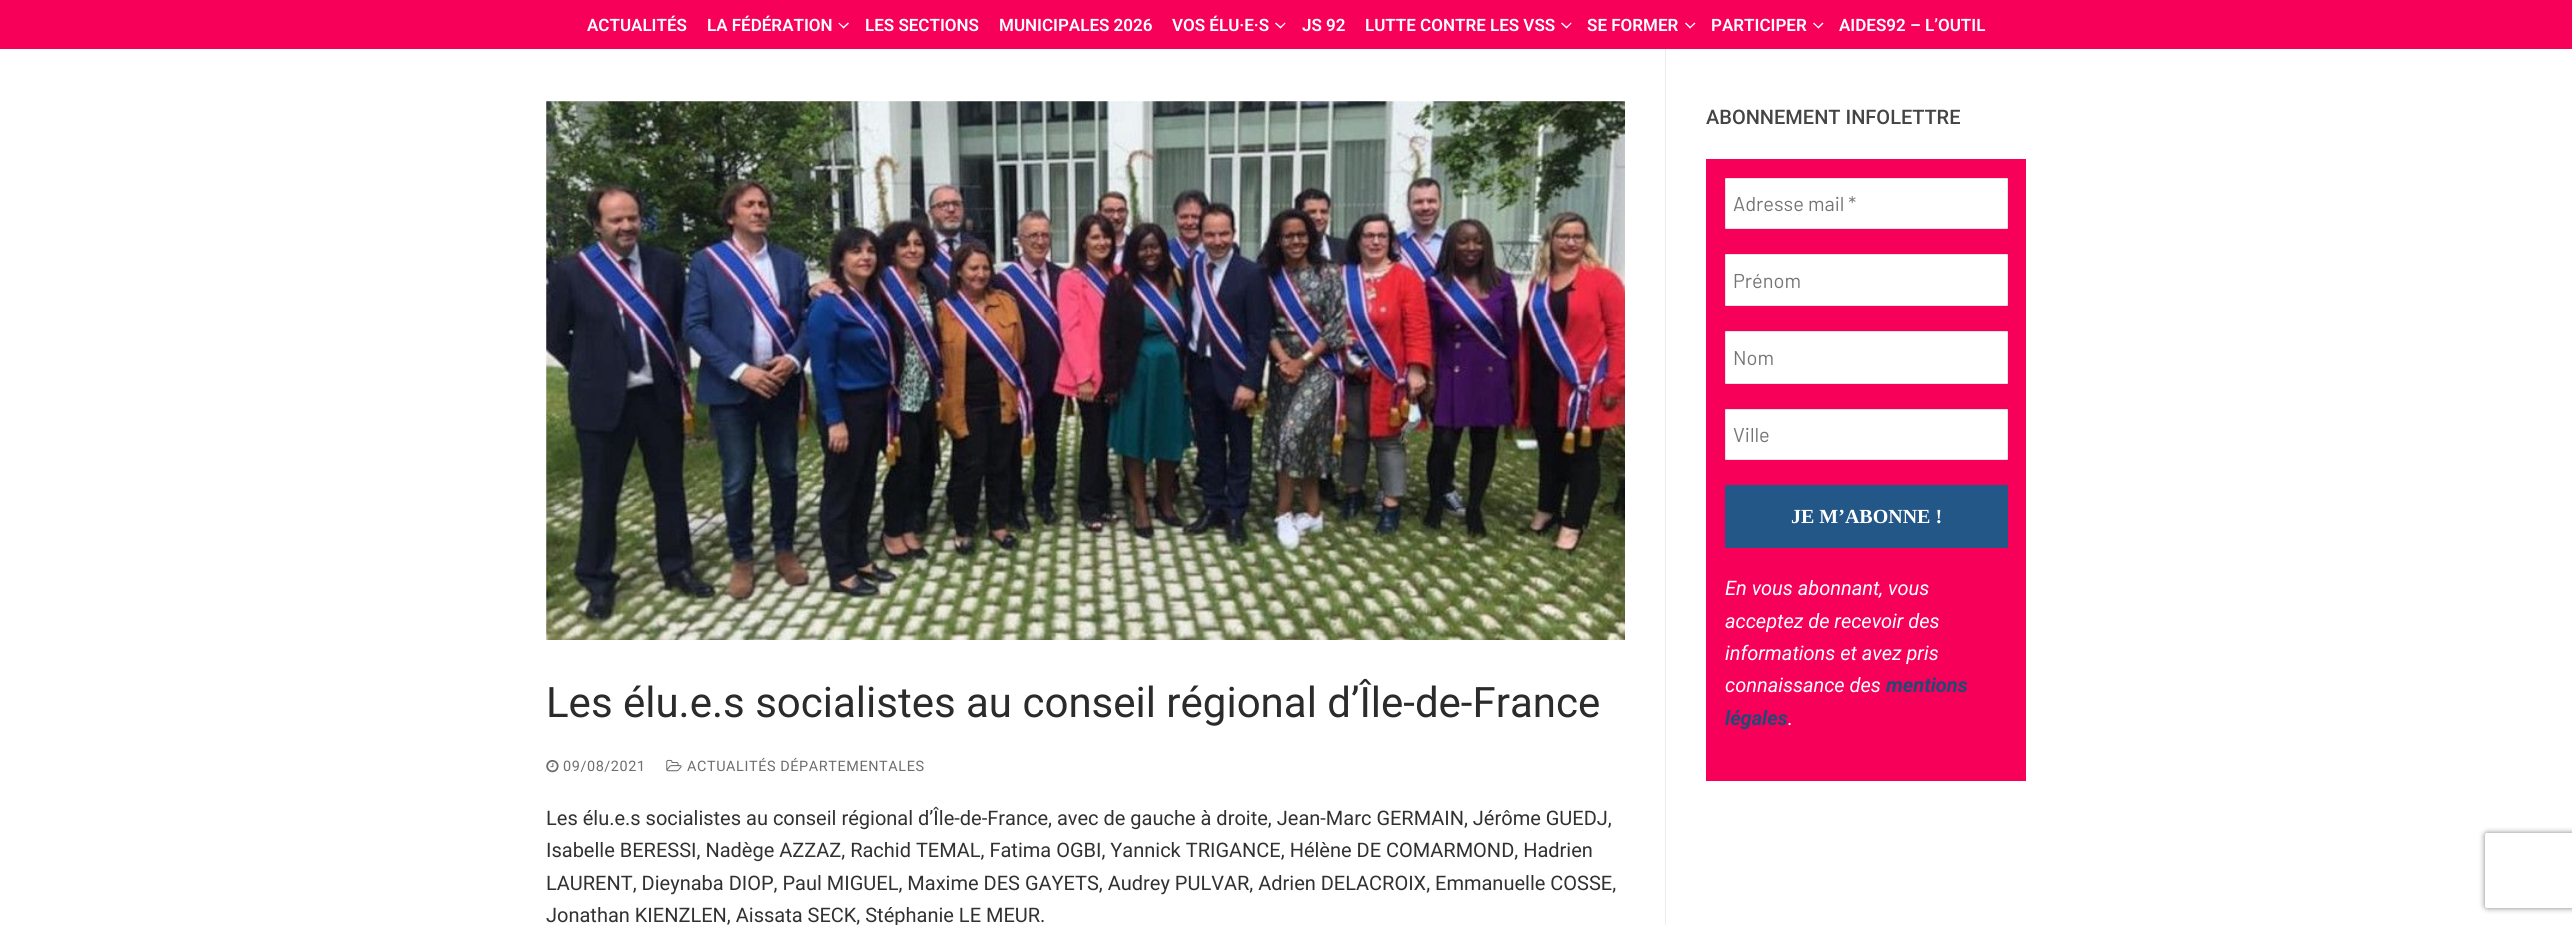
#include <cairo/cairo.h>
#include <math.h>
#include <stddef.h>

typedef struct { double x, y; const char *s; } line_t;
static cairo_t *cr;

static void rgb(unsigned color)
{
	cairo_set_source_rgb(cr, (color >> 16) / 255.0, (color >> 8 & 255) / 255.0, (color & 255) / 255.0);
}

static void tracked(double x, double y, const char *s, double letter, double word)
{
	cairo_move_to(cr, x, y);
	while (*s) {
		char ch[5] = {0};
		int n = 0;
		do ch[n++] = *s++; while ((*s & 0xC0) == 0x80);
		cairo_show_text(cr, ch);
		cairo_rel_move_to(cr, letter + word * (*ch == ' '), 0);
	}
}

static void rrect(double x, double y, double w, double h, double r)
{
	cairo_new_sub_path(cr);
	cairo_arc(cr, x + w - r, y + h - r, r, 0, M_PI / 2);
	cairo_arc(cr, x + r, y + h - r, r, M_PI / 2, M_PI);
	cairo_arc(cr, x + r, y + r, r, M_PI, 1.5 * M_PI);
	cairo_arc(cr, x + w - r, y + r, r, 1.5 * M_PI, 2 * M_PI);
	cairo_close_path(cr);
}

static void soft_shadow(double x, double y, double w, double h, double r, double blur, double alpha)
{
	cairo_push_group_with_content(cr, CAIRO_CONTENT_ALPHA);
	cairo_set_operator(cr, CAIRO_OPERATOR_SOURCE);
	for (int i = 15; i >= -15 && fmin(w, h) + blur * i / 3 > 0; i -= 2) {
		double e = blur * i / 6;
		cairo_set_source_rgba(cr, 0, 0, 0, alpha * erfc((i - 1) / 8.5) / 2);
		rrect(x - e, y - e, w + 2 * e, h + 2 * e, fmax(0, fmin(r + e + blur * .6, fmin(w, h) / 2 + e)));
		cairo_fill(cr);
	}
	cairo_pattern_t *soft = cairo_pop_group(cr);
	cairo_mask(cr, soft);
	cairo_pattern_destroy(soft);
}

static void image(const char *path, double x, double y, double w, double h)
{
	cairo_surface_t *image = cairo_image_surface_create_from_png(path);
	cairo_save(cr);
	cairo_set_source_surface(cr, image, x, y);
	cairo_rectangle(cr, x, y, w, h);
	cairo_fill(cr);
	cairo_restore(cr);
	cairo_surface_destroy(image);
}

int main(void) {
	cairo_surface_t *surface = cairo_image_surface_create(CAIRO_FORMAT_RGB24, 2572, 925);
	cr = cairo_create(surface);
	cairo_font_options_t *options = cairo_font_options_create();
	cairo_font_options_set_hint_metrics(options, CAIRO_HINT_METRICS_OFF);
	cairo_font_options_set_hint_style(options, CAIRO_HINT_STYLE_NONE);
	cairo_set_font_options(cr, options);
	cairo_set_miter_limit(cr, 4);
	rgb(0xffffff);
	cairo_paint(cr);
	rgb(0xf70059);
	cairo_rectangle(cr, 0, 0, 2572, 49);
	cairo_fill(cr);
	rgb(0xffffff);
	cairo_new_path(cr);
	cairo_move_to(cr, 843.5, 28.5);
	cairo_line_to(cr, 838.5, 23.5);
	cairo_line_to(cr, 839, 22.5);
	cairo_line_to(cr, 844.5, 27.5);
	cairo_close_path(cr);
	cairo_fill(cr);
	cairo_new_path(cr);
	cairo_move_to(cr, 843.5, 28.5);
	cairo_line_to(cr, 842.5, 27.5);
	cairo_line_to(cr, 848, 22.5);
	cairo_line_to(cr, 849, 23.5);
	cairo_close_path(cr);
	cairo_fill(cr);
	cairo_new_path(cr);
	cairo_move_to(cr, 1280.5, 28.5);
	cairo_line_to(cr, 1275, 23.5);
	cairo_line_to(cr, 1276, 22.5);
	cairo_line_to(cr, 1281.5, 27.5);
	cairo_close_path(cr);
	cairo_fill(cr);
	cairo_new_path(cr);
	cairo_move_to(cr, 1280.5, 28.5);
	cairo_line_to(cr, 1279.5, 27.5);
	cairo_line_to(cr, 1285, 22.5);
	cairo_line_to(cr, 1285.5, 23.5);
	cairo_close_path(cr);
	cairo_fill(cr);
	cairo_new_path(cr);
	cairo_move_to(cr, 1566.5, 28.5);
	cairo_line_to(cr, 1561, 23.5);
	cairo_line_to(cr, 1562, 22.5);
	cairo_line_to(cr, 1567.5, 27.5);
	cairo_close_path(cr);
	cairo_fill(cr);
	cairo_new_path(cr);
	cairo_move_to(cr, 1566.5, 28.5);
	cairo_line_to(cr, 1565.5, 27.5);
	cairo_line_to(cr, 1571, 22.5);
	cairo_line_to(cr, 1571.5, 23.5);
	cairo_close_path(cr);
	cairo_fill(cr);
	cairo_new_path(cr);
	cairo_move_to(cr, 1690, 28.5);
	cairo_line_to(cr, 1685, 23.5);
	cairo_line_to(cr, 1686, 22.5);
	cairo_line_to(cr, 1691, 27.5);
	cairo_close_path(cr);
	cairo_fill(cr);
	cairo_new_path(cr);
	cairo_move_to(cr, 1690, 28.5);
	cairo_line_to(cr, 1689.5, 27.5);
	cairo_line_to(cr, 1694.5, 22.5);
	cairo_line_to(cr, 1695.5, 23.5);
	cairo_close_path(cr);
	cairo_fill(cr);
	cairo_new_path(cr);
	cairo_move_to(cr, 1818.5, 28.5);
	cairo_line_to(cr, 1813, 23.5);
	cairo_line_to(cr, 1814, 22.5);
	cairo_line_to(cr, 1819, 27.5);
	cairo_close_path(cr);
	cairo_fill(cr);
	cairo_new_path(cr);
	cairo_move_to(cr, 1818.5, 28.5);
	cairo_line_to(cr, 1817.5, 27.5);
	cairo_line_to(cr, 1822.5, 22.5);
	cairo_line_to(cr, 1823.5, 23.5);
	cairo_close_path(cr);
	cairo_fill(cr);
	rgb(0xf70059);
	cairo_rectangle(cr, 1706, 159, 320, 622);
	cairo_fill(cr);
	rgb(0xffffff);
	rrect(1725.5, 178.5, 282, 50, 0.5);
	cairo_fill_preserve(cr);
	rgb(0xe5e5e5);
	cairo_set_line_width(cr, 1);
	cairo_stroke(cr);
	rgb(0xffffff);
	rrect(1725.5, 254.5, 282, 51, 0.5);
	cairo_fill_preserve(cr);
	rgb(0xe5e5e5);
	cairo_stroke(cr);
	rgb(0xffffff);
	rrect(1725.5, 331.5, 282, 52, 0.5);
	cairo_fill_preserve(cr);
	rgb(0xe5e5e5);
	cairo_stroke(cr);
	rgb(0xffffff);
	rrect(1725.5, 409.5, 282, 50, 0.5);
	cairo_fill_preserve(cr);
	rgb(0xe5e5e5);
	cairo_stroke(cr);
	rgb(0x235787);
	rrect(1725, 485, 283, 63, 1);
	cairo_fill(cr);
	rgb(0xeaecee);
	cairo_rectangle(cr, 1665, 49, 1, 876);
	cairo_fill(cr);
	image("img/1.png", 546, 101, 1079, 539);
	image("img/2.png", 546, 759, 13, 14);
	image("img/3.png", 666, 759, 16, 13);
	cairo_save(cr);
	cairo_set_fill_rule(cr, CAIRO_FILL_RULE_EVEN_ODD);
	cairo_new_path(cr);
	cairo_move_to(cr, 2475, 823);
	cairo_line_to(cr, 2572, 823);
	cairo_line_to(cr, 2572, 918);
	cairo_line_to(cr, 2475, 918);
	cairo_close_path(cr);
	cairo_move_to(cr, 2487.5, 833);
	cairo_line_to(cr, 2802.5, 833);
	cairo_curve_to(cr, 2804, 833, 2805, 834, 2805, 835.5);
	cairo_line_to(cr, 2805, 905.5);
	cairo_curve_to(cr, 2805, 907, 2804, 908, 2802.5, 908);
	cairo_line_to(cr, 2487.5, 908);
	cairo_curve_to(cr, 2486, 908, 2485, 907, 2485, 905.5);
	cairo_line_to(cr, 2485, 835.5);
	cairo_curve_to(cr, 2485, 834, 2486, 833, 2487.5, 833);
	cairo_close_path(cr);
	cairo_clip(cr);
	rgb(0x808080);
	soft_shadow(2485, 833, 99, 75, 2.5, 3, 1);
	cairo_restore(cr);
	cairo_select_font_face(cr, "Roboto SemiBold", CAIRO_FONT_SLANT_NORMAL, CAIRO_FONT_WEIGHT_NORMAL);
	cairo_set_font_size(cr, 17);
	rgb(0xffffff);
	{
		static const line_t items[] = {
			{587, 31, "ACTUALITÉS"},
			{707, 31, "LA FÉDÉRATION"},
			{865, 31, "LES SECTIONS"},
			{999, 31, "MUNICIPALES 2026"},
			{1172, 31, "VOS ÉLU·E·S"},
			{1302, 31, "JS 92"},
			{1365, 31, "LUTTE CONTRE LES VSS"},
			{1587, 31, "SE FORMER"},
			{1711, 31, "PARTICIPER"},
			{1839, 31, "AIDES92 – L’OUTIL"},
		};
		for (size_t i = 0; i < sizeof items / sizeof *items; i++) {
			cairo_move_to(cr, items[i].x, items[i].y);
			cairo_show_text(cr, items[i].s);
		}
	}
	cairo_select_font_face(cr, "Roboto Medium", CAIRO_FONT_SLANT_NORMAL, CAIRO_FONT_WEIGHT_NORMAL);
	cairo_set_font_size(cr, 20);
	rgb(0x444444);
	cairo_move_to(cr, 1706, 124);
	cairo_show_text(cr, "ABONNEMENT INFOLETTRE");
	cairo_select_font_face(cr, "Barlow", CAIRO_FONT_SLANT_NORMAL, CAIRO_FONT_WEIGHT_NORMAL);
	rgb(0x757575);
	{
		static const line_t items[] = {
			{1733, 211, "Adresse mail *"},
			{1733, 288, "Prénom"},
			{1733, 365, "Nom"},
			{1733, 442, "Ville"},
		};
		for (size_t i = 0; i < sizeof items / sizeof *items; i++) {
			cairo_move_to(cr, items[i].x, items[i].y);
			cairo_show_text(cr, items[i].s);
		}
	}
	cairo_select_font_face(cr, "Liberation Serif", CAIRO_FONT_SLANT_NORMAL, CAIRO_FONT_WEIGHT_BOLD);
	rgb(0xffffff);
	cairo_move_to(cr, 1791, 523);
	cairo_show_text(cr, "JE M’ABONNE !");
	cairo_select_font_face(cr, "Roboto", CAIRO_FONT_SLANT_ITALIC, CAIRO_FONT_WEIGHT_NORMAL);
	{
		static const line_t items[] = {
			{1725, 595, "En vous abonnant, vous"},
			{1725, 628, "acceptez de recevoir des"},
			{1725, 660, "informations et avez pris"},
			{1725, 692, "connaissance des"},
		};
		for (size_t i = 0; i < sizeof items / sizeof *items; i++) {
			cairo_move_to(cr, items[i].x, items[i].y);
			cairo_show_text(cr, items[i].s);
		}
	}
	cairo_select_font_face(cr, "Roboto", CAIRO_FONT_SLANT_ITALIC, CAIRO_FONT_WEIGHT_BOLD);
	rgb(0x1e4b75);
	cairo_move_to(cr, 1886, 692);
	cairo_show_text(cr, "mentions");
	cairo_move_to(cr, 1725, 725);
	cairo_show_text(cr, "légales");
	cairo_select_font_face(cr, "Roboto", CAIRO_FONT_SLANT_ITALIC, CAIRO_FONT_WEIGHT_NORMAL);
	rgb(0xffffff);
	cairo_move_to(cr, 1788, 725);
	cairo_show_text(cr, ".");
	cairo_select_font_face(cr, "Roboto", CAIRO_FONT_SLANT_NORMAL, CAIRO_FONT_WEIGHT_NORMAL);
	cairo_set_font_size(cr, 42);
	rgb(0x2b2b2b);
	cairo_move_to(cr, 546, 717);
	cairo_show_text(cr, "Les élu.e.s socialistes au conseil régional d’Île-de-France");
	cairo_set_font_size(cr, 14.4);
	rgb(0x6d6d6d);
	tracked(563, 771, "09/08/2021", 0.6, 0);
	tracked(687, 771, "ACTUALITÉS DÉPARTEMENTALES", 0.6, 0);
	cairo_set_font_size(cr, 20);
	rgb(0x313131);
	{
		static const line_t items[] = {
			{546, 825, "Les élu.e.s socialistes au conseil régional d’Île-de-France, avec de gauche à droite, Jean-Marc GERMAIN, Jérôme GUEDJ,"},
			{546, 857, "Isabelle BERESSI, Nadège AZZAZ, Rachid TEMAL, Fatima OGBI, Yannick TRIGANCE, Hélène DE COMARMOND, Hadrien"},
			{546, 890, "LAURENT, Dieynaba DIOP, Paul MIGUEL, Maxime DES GAYETS, Audrey PULVAR, Adrien DELACROIX, Emmanuelle COSSE,"},
			{546, 922, "Jonathan KIENZLEN, Aissata SECK, Stéphanie LE MEUR."},
		};
		for (size_t i = 0; i < sizeof items / sizeof *items; i++) {
			cairo_move_to(cr, items[i].x, items[i].y);
			cairo_show_text(cr, items[i].s);
		}
	}
	cairo_surface_write_to_png(surface, "page.png");
	cairo_font_options_destroy(options);
	cairo_destroy(cr);
	cairo_surface_destroy(surface);
	return 0;
}
